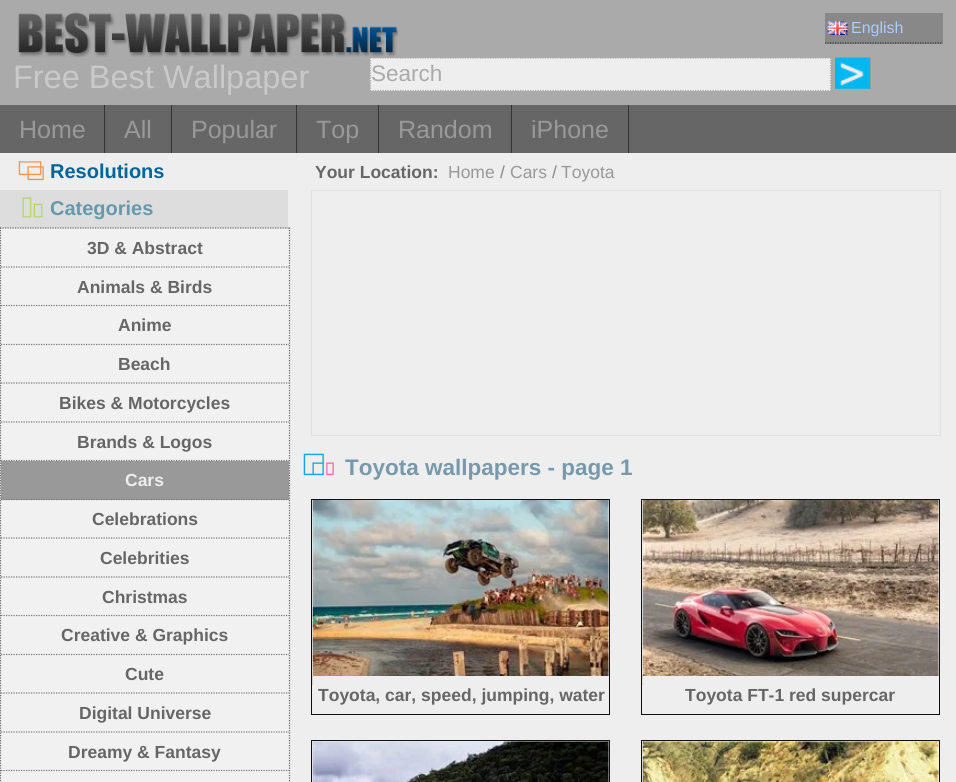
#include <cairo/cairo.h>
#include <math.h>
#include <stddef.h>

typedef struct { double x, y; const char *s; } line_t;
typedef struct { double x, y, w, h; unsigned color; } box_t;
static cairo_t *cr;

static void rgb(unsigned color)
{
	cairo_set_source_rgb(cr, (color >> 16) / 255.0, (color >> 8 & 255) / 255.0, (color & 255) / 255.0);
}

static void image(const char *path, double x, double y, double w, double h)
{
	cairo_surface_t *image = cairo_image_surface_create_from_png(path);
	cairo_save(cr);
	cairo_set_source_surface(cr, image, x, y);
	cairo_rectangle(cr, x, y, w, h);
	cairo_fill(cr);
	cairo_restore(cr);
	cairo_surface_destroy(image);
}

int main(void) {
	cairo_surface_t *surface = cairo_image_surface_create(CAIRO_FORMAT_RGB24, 956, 782);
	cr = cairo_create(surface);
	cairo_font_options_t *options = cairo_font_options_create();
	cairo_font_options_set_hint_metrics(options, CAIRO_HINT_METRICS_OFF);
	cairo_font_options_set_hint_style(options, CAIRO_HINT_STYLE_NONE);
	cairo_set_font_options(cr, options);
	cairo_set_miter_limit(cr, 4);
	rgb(0xeeeeee);
	cairo_paint(cr);
	rgb(0xaaaaaa);
	cairo_rectangle(cr, 0, 0, 956, 105);
	cairo_fill(cr);
	image("img/1.png", 18, 12, 381, 46);
	rgb(0x888888);
	cairo_rectangle(cr, 825, 13, 118, 31);
	cairo_fill(cr);
	cairo_new_path(cr);
	cairo_move_to(cr, 825, 43);
	cairo_line_to(cr, 942.5, 43);
	rgb(0x333333);
	cairo_set_line_width(cr, 1.2);
	cairo_set_dash(cr, (double[]){1.25, 1.25}, 2, 0);
	cairo_stroke(cr);
	image("img/2.png", 827, 21, 21, 14);
	rgb(0xeeeeee);
	cairo_rectangle(cr, 370, 58, 461, 33);
	cairo_fill(cr);
	cairo_new_path(cr);
	cairo_move_to(cr, 370, 58);
	cairo_line_to(cr, 831, 58);
	rgb(0xaaaaaa);
	cairo_stroke(cr);
	cairo_new_path(cr);
	cairo_move_to(cr, 830.5, 57.5);
	cairo_line_to(cr, 830.5, 91);
	cairo_stroke(cr);
	cairo_new_path(cr);
	cairo_move_to(cr, 370, 90.5);
	cairo_line_to(cr, 831, 90.5);
	cairo_stroke(cr);
	cairo_new_path(cr);
	cairo_move_to(cr, 370.5, 57.5);
	cairo_line_to(cr, 370.5, 91);
	cairo_stroke(cr);
	image("img/3.png", 835, 57, 36, 32);
	{
		static const box_t items[] = {
			{0, 105, 956, 48, 0x666666},
			{104, 105, 1, 48, 0x333333},
			{171, 105, 1, 48, 0x333333},
			{296, 105, 1, 48, 0x333333},
			{378, 105, 1, 48, 0x333333},
			{511, 105, 1, 48, 0x333333},
			{628, 105, 1, 48, 0x333333},
		};
		for (size_t i = 0; i < sizeof items / sizeof *items; i++) {
			rgb(items[i].color);
			cairo_rectangle(cr, items[i].x, items[i].y, items[i].w, items[i].h);
			cairo_fill(cr);
		}
	}
	image("img/4.png", 18, 161, 26, 20);
	rgb(0xdddddd);
	cairo_rectangle(cr, 0, 190, 288, 38);
	cairo_fill(cr);
	image("img/5.png", 22, 197, 21, 21);
	cairo_rectangle(cr, 311.5, 190.5, 629, 245);
	rgb(0xe1e1e1);
	cairo_set_line_width(cr, 1);
	cairo_set_dash(cr, NULL, 0, 0);
	cairo_stroke(cr);
	image("img/6.png", 303, 453, 31, 23);
	cairo_rectangle(cr, 311.5, 499.5, 298, 215);
	rgb(0x111111);
	cairo_stroke(cr);
	image("img/7.png", 312, 500, 297, 185);
	rgb(0xeeeeee);
	cairo_rectangle(cr, 313, 676, 296, 9);
	cairo_fill(cr);
	cairo_rectangle(cr, 641.5, 499.5, 298, 215);
	rgb(0x111111);
	cairo_stroke(cr);
	image("img/8.png", 642, 500, 297, 185);
	rgb(0xeeeeee);
	cairo_rectangle(cr, 643, 676, 296, 9);
	cairo_fill(cr);
	cairo_rectangle(cr, 311.5, 740.5, 298, 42);
	rgb(0x111111);
	cairo_stroke(cr);
	image("img/9.png", 312, 741, 297, 41);
	cairo_rectangle(cr, 641.5, 740.5, 298, 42);
	cairo_stroke(cr);
	image("img/10.png", 642, 741, 297, 41);
	rgb(0xf1f1f1);
	cairo_rectangle(cr, 0, 228, 290, 554);
	cairo_fill(cr);
	cairo_new_path(cr);
	cairo_move_to(cr, 0, 228);
	cairo_line_to(cr, 290, 228);
	rgb(0x666666);
	cairo_set_line_width(cr, 1.2);
	cairo_set_dash(cr, (double[]){1.25, 1.25}, 2, 0);
	cairo_stroke(cr);
	cairo_new_path(cr);
	cairo_move_to(cr, 289.5, 227.5);
	cairo_line_to(cr, 289.5, 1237.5);
	cairo_stroke(cr);
	cairo_new_path(cr);
	cairo_move_to(cr, 0.5, 227.5);
	cairo_line_to(cr, 0.5, 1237.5);
	cairo_stroke(cr);
	cairo_new_path(cr);
	cairo_move_to(cr, 1, 267);
	cairo_line_to(cr, 289, 267);
	rgb(0x777777);
	cairo_stroke(cr);
	cairo_new_path(cr);
	cairo_move_to(cr, 1, 305.5);
	cairo_line_to(cr, 289, 305.5);
	cairo_stroke(cr);
	cairo_new_path(cr);
	cairo_move_to(cr, 1, 344.5);
	cairo_line_to(cr, 289, 344.5);
	cairo_stroke(cr);
	cairo_new_path(cr);
	cairo_move_to(cr, 1, 383);
	cairo_line_to(cr, 289, 383);
	cairo_stroke(cr);
	cairo_new_path(cr);
	cairo_move_to(cr, 1, 422);
	cairo_line_to(cr, 289, 422);
	cairo_stroke(cr);
	rgb(0x999999);
	cairo_rectangle(cr, 1, 461, 288, 39);
	cairo_fill(cr);
	cairo_new_path(cr);
	cairo_move_to(cr, 1, 460.5);
	cairo_line_to(cr, 289, 460.5);
	rgb(0x777777);
	cairo_stroke(cr);
	cairo_new_path(cr);
	cairo_move_to(cr, 1, 499.5);
	cairo_line_to(cr, 289, 499.5);
	cairo_stroke(cr);
	cairo_new_path(cr);
	cairo_move_to(cr, 1, 538);
	cairo_line_to(cr, 289, 538);
	cairo_stroke(cr);
	cairo_new_path(cr);
	cairo_move_to(cr, 1, 577);
	cairo_line_to(cr, 289, 577);
	cairo_stroke(cr);
	cairo_new_path(cr);
	cairo_move_to(cr, 1, 615.5);
	cairo_line_to(cr, 289, 615.5);
	cairo_stroke(cr);
	cairo_new_path(cr);
	cairo_move_to(cr, 1, 654.5);
	cairo_line_to(cr, 289, 654.5);
	cairo_stroke(cr);
	cairo_new_path(cr);
	cairo_move_to(cr, 1, 693);
	cairo_line_to(cr, 289, 693);
	cairo_stroke(cr);
	cairo_new_path(cr);
	cairo_move_to(cr, 1, 732);
	cairo_line_to(cr, 289, 732);
	cairo_stroke(cr);
	cairo_new_path(cr);
	cairo_move_to(cr, 1, 770.5);
	cairo_line_to(cr, 289, 770.5);
	cairo_stroke(cr);
	cairo_select_font_face(cr, "Liberation Sans", CAIRO_FONT_SLANT_NORMAL, CAIRO_FONT_WEIGHT_NORMAL);
	cairo_set_font_size(cr, 16);
	rgb(0xaaccff);
	cairo_move_to(cr, 851, 33);
	cairo_show_text(cr, "English");
	cairo_set_font_size(cr, 32.5);
	rgb(0xc9c9c9);
	cairo_move_to(cr, 13, 88);
	cairo_show_text(cr, "Free Best Wallpaper");
	cairo_set_font_size(cr, 22.5);
	rgb(0xaaaaaa);
	cairo_move_to(cr, 371, 81);
	cairo_show_text(cr, "Search");
	cairo_set_font_size(cr, 25);
	rgb(0x999999);
	{
		static const line_t items[] = {
			{19, 138, "Home"},
			{124, 138, "All"},
			{191, 138, "Popular"},
			{316, 138, "Top"},
			{398, 138, "Random"},
			{531, 138, "iPhone"},
		};
		for (size_t i = 0; i < sizeof items / sizeof *items; i++) {
			cairo_move_to(cr, items[i].x, items[i].y);
			cairo_show_text(cr, items[i].s);
		}
	}
	cairo_select_font_face(cr, "Liberation Sans", CAIRO_FONT_SLANT_NORMAL, CAIRO_FONT_WEIGHT_BOLD);
	cairo_set_font_size(cr, 20);
	rgb(0x006699);
	cairo_move_to(cr, 50, 178);
	cairo_show_text(cr, "Resolutions");
	rgb(0x6699aa);
	cairo_move_to(cr, 50, 215);
	cairo_show_text(cr, "Categories");
	cairo_set_font_size(cr, 17.5);
	rgb(0x666666);
	cairo_move_to(cr, 315, 178);
	cairo_show_text(cr, "Your Location:");
	cairo_select_font_face(cr, "Liberation Sans", CAIRO_FONT_SLANT_NORMAL, CAIRO_FONT_WEIGHT_NORMAL);
	rgb(0x999999);
	cairo_move_to(cr, 448, 178);
	cairo_show_text(cr, "Home");
	rgb(0x888888);
	cairo_move_to(cr, 500, 178);
	cairo_show_text(cr, "/");
	rgb(0x999999);
	cairo_move_to(cr, 510, 178);
	cairo_show_text(cr, "Cars");
	rgb(0x888888);
	cairo_move_to(cr, 552, 178);
	cairo_show_text(cr, "/");
	rgb(0x999999);
	cairo_move_to(cr, 561, 178);
	cairo_show_text(cr, "Toyota");
	cairo_select_font_face(cr, "Liberation Sans", CAIRO_FONT_SLANT_NORMAL, CAIRO_FONT_WEIGHT_BOLD);
	cairo_set_font_size(cr, 22.5);
	rgb(0x7799aa);
	cairo_move_to(cr, 345, 475);
	cairo_show_text(cr, "Toyota wallpapers - page 1");
	cairo_set_font_size(cr, 17.5);
	rgb(0x666666);
	{
		static const line_t items[] = {
			{318, 701, "Toyota, car, speed, jumping, water"},
			{685, 701, "Toyota FT-1 red supercar"},
			{87, 254, "3D & Abstract"},
			{77, 293, "Animals & Birds"},
			{118, 331, "Anime"},
			{118, 370, "Beach"},
			{59, 409, "Bikes & Motorcycles"},
			{77, 448, "Brands & Logos"},
		};
		for (size_t i = 0; i < sizeof items / sizeof *items; i++) {
			cairo_move_to(cr, items[i].x, items[i].y);
			cairo_show_text(cr, items[i].s);
		}
	}
	rgb(0xeeeeee);
	cairo_move_to(cr, 125, 486);
	cairo_show_text(cr, "Cars");
	rgb(0x666666);
	{
		static const line_t items[] = {
			{92, 525, "Celebrations"},
			{100, 564, "Celebrities"},
			{102, 603, "Christmas"},
			{61, 641, "Creative & Graphics"},
			{125, 680, "Cute"},
			{79, 719, "Digital Universe"},
			{68, 758, "Dreamy & Fantasy"},
		};
		for (size_t i = 0; i < sizeof items / sizeof *items; i++) {
			cairo_move_to(cr, items[i].x, items[i].y);
			cairo_show_text(cr, items[i].s);
		}
	}
	cairo_surface_write_to_png(surface, "page.png");
	cairo_font_options_destroy(options);
	cairo_destroy(cr);
	cairo_surface_destroy(surface);
	return 0;
}
